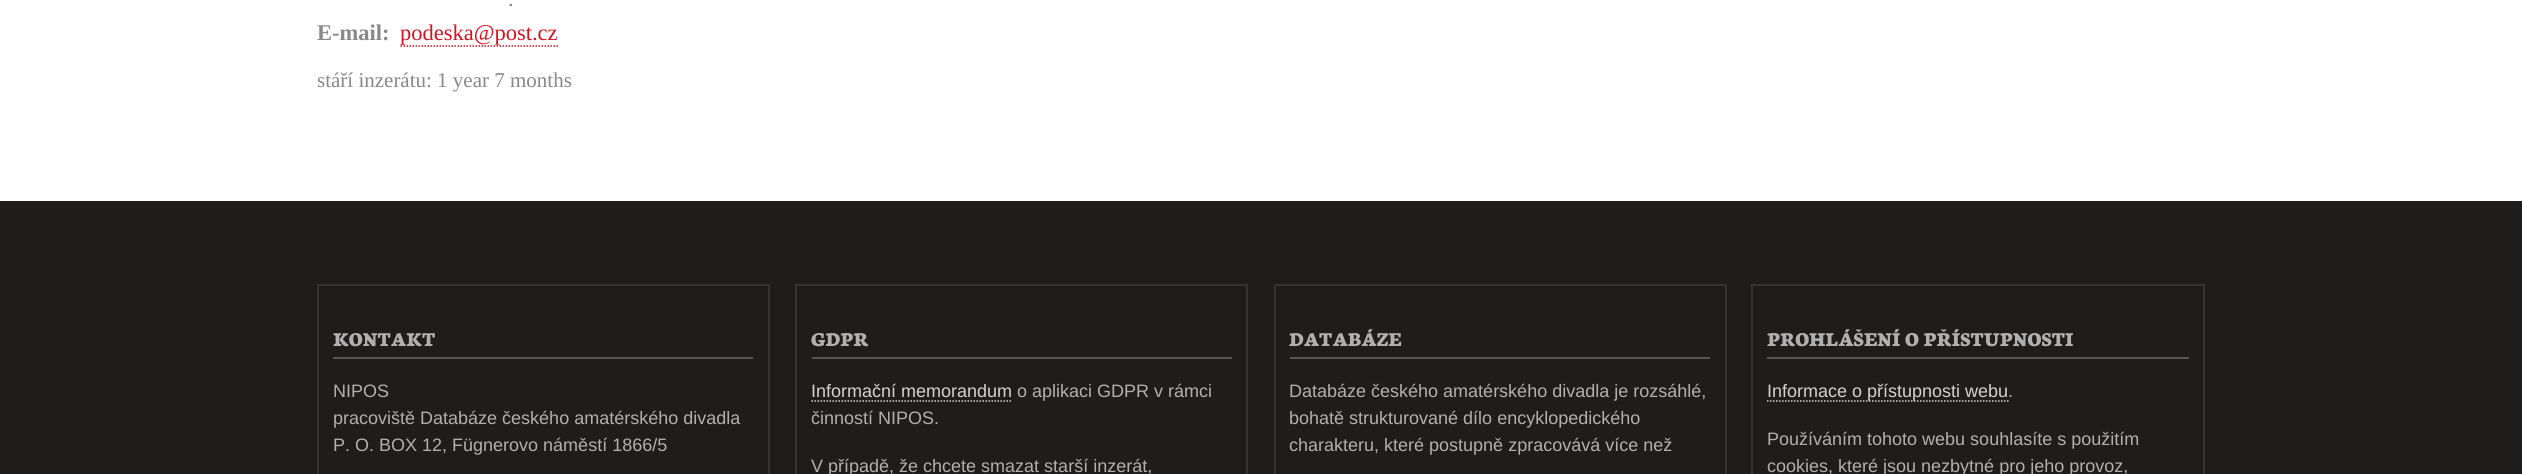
#include <cairo/cairo.h>
#include <math.h>
#include <stddef.h>

typedef struct { double x, y; const char *s; } line_t;
static cairo_t *cr;

static void rgb(unsigned color)
{
	cairo_set_source_rgb(cr, (color >> 16) / 255.0, (color >> 8 & 255) / 255.0, (color & 255) / 255.0);
}

int main(void) {
	cairo_surface_t *surface = cairo_image_surface_create(CAIRO_FORMAT_RGB24, 2522, 474);
	cr = cairo_create(surface);
	cairo_font_options_t *options = cairo_font_options_create();
	cairo_font_options_set_hint_metrics(options, CAIRO_HINT_METRICS_OFF);
	cairo_font_options_set_hint_style(options, CAIRO_HINT_STYLE_NONE);
	cairo_set_font_options(cr, options);
	cairo_set_miter_limit(cr, 4);
	rgb(0xffffff);
	cairo_paint(cr);
	cairo_new_path(cr);
	cairo_move_to(cr, 400.5, 46);
	cairo_line_to(cr, 558, 46);
	rgb(0xd6121f);
	cairo_set_line_width(cr, 1.5);
	cairo_set_dash(cr, (double[]){1.5, 1.5}, 2, 0);
	cairo_stroke(cr);
	rgb(0x1f1d1c);
	cairo_rectangle(cr, 0, 201, 2522, 273);
	cairo_fill(cr);
	cairo_rectangle(cr, 318, 285, 451, 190);
	rgb(0x353433);
	cairo_set_line_width(cr, 2);
	cairo_set_dash(cr, NULL, 0, 0);
	cairo_stroke(cr);
	rgb(0x555555);
	cairo_rectangle(cr, 333, 357, 420, 2);
	cairo_fill(cr);
	cairo_rectangle(cr, 796, 285, 451, 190);
	rgb(0x353433);
	cairo_stroke(cr);
	rgb(0x555555);
	cairo_rectangle(cr, 812, 357, 420, 2);
	cairo_fill(cr);
	cairo_new_path(cr);
	cairo_move_to(cr, 811.5, 401);
	cairo_line_to(cr, 1012.5, 401);
	rgb(0xd2d2d2);
	cairo_set_line_width(cr, 1.5);
	cairo_set_dash(cr, (double[]){1.5, 1.5}, 2, 0);
	cairo_stroke(cr);
	cairo_rectangle(cr, 1275, 285, 451, 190);
	rgb(0x353433);
	cairo_set_line_width(cr, 2);
	cairo_set_dash(cr, NULL, 0, 0);
	cairo_stroke(cr);
	rgb(0x555555);
	cairo_rectangle(cr, 1290, 357, 420, 2);
	cairo_fill(cr);
	cairo_rectangle(cr, 1752, 285, 452, 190);
	rgb(0x353433);
	cairo_stroke(cr);
	rgb(0x555555);
	cairo_rectangle(cr, 1767, 357, 422, 2);
	cairo_fill(cr);
	cairo_new_path(cr);
	cairo_move_to(cr, 1767, 401);
	cairo_line_to(cr, 2008.5, 401);
	rgb(0xd2d2d2);
	cairo_set_line_width(cr, 1.5);
	cairo_set_dash(cr, (double[]){1.5, 1.5}, 2, 0);
	cairo_stroke(cr);
	cairo_select_font_face(cr, "Liberation Serif", CAIRO_FONT_SLANT_NORMAL, CAIRO_FONT_WEIGHT_NORMAL);
	cairo_set_font_size(cr, 22.5);
	rgb(0x888888);
	cairo_move_to(cr, 508, 6);
	cairo_show_text(cr, ".");
	cairo_select_font_face(cr, "Liberation Serif", CAIRO_FONT_SLANT_NORMAL, CAIRO_FONT_WEIGHT_BOLD);
	cairo_move_to(cr, 317, 40);
	cairo_show_text(cr, "E-mail:");
	cairo_select_font_face(cr, "Liberation Serif", CAIRO_FONT_SLANT_NORMAL, CAIRO_FONT_WEIGHT_NORMAL);
	rgb(0xd6121f);
	cairo_move_to(cr, 400, 40);
	cairo_show_text(cr, "podeska@post.cz");
	cairo_set_font_size(cr, 21);
	rgb(0x888888);
	cairo_move_to(cr, 317, 87);
	cairo_show_text(cr, "stáří inzerátu: 1 year 7 months");
	cairo_select_font_face(cr, "Neuton ExtraBold", CAIRO_FONT_SLANT_NORMAL, CAIRO_FONT_WEIGHT_NORMAL);
	rgb(0xb1b0b0);
	cairo_move_to(cr, 333, 346);
	cairo_show_text(cr, "KONTAKT");
	cairo_select_font_face(cr, "Liberation Sans", CAIRO_FONT_SLANT_NORMAL, CAIRO_FONT_WEIGHT_NORMAL);
	cairo_set_font_size(cr, 18);
	{
		static const line_t items[] = {
			{333, 397, "NIPOS"},
			{333, 424, "pracoviště Databáze českého amatérského divadla"},
			{333, 451, "P. O. BOX 12, Fügnerovo náměstí 1866/5"},
		};
		for (size_t i = 0; i < sizeof items / sizeof *items; i++) {
			cairo_move_to(cr, items[i].x, items[i].y);
			cairo_show_text(cr, items[i].s);
		}
	}
	cairo_select_font_face(cr, "Neuton ExtraBold", CAIRO_FONT_SLANT_NORMAL, CAIRO_FONT_WEIGHT_NORMAL);
	cairo_set_font_size(cr, 21);
	cairo_move_to(cr, 811, 346);
	cairo_show_text(cr, "GDPR");
	cairo_select_font_face(cr, "Liberation Sans", CAIRO_FONT_SLANT_NORMAL, CAIRO_FONT_WEIGHT_NORMAL);
	cairo_set_font_size(cr, 18);
	rgb(0xd2d2d2);
	cairo_move_to(cr, 811, 397);
	cairo_show_text(cr, "Informační memorandum");
	rgb(0xb1b0b0);
	{
		static const line_t items[] = {
			{1017, 397, "o aplikaci GDPR v rámci"},
			{811, 424, "činností NIPOS."},
			{811, 472, "V případě, že chcete smazat starší inzerát,"},
		};
		for (size_t i = 0; i < sizeof items / sizeof *items; i++) {
			cairo_move_to(cr, items[i].x, items[i].y);
			cairo_show_text(cr, items[i].s);
		}
	}
	cairo_select_font_face(cr, "Neuton ExtraBold", CAIRO_FONT_SLANT_NORMAL, CAIRO_FONT_WEIGHT_NORMAL);
	cairo_set_font_size(cr, 21);
	cairo_move_to(cr, 1289, 346);
	cairo_show_text(cr, "DATABÁZE");
	cairo_select_font_face(cr, "Liberation Sans", CAIRO_FONT_SLANT_NORMAL, CAIRO_FONT_WEIGHT_NORMAL);
	cairo_set_font_size(cr, 18);
	{
		static const line_t items[] = {
			{1289, 397, "Databáze českého amatérského divadla je rozsáhlé,"},
			{1289, 424, "bohatě strukturované dílo encyklopedického"},
			{1289, 451, "charakteru, které postupně zpracovává více než"},
		};
		for (size_t i = 0; i < sizeof items / sizeof *items; i++) {
			cairo_move_to(cr, items[i].x, items[i].y);
			cairo_show_text(cr, items[i].s);
		}
	}
	cairo_select_font_face(cr, "Neuton ExtraBold", CAIRO_FONT_SLANT_NORMAL, CAIRO_FONT_WEIGHT_NORMAL);
	cairo_set_font_size(cr, 21);
	cairo_move_to(cr, 1767, 346);
	cairo_show_text(cr, "PROHLÁŠENÍ O PŘÍSTUPNOSTI");
	cairo_select_font_face(cr, "Liberation Sans", CAIRO_FONT_SLANT_NORMAL, CAIRO_FONT_WEIGHT_NORMAL);
	cairo_set_font_size(cr, 18);
	rgb(0xd2d2d2);
	cairo_move_to(cr, 1767, 397);
	cairo_show_text(cr, "Informace o přístupnosti webu");
	rgb(0xb1b0b0);
	{
		static const line_t items[] = {
			{2008, 397, "."},
			{1767, 445, "Používáním tohoto webu souhlasíte s použitím"},
			{1767, 472, "cookies, které jsou nezbytné pro jeho provoz,"},
		};
		for (size_t i = 0; i < sizeof items / sizeof *items; i++) {
			cairo_move_to(cr, items[i].x, items[i].y);
			cairo_show_text(cr, items[i].s);
		}
	}
	cairo_surface_write_to_png(surface, "page.png");
	cairo_font_options_destroy(options);
	cairo_destroy(cr);
	cairo_surface_destroy(surface);
	return 0;
}
